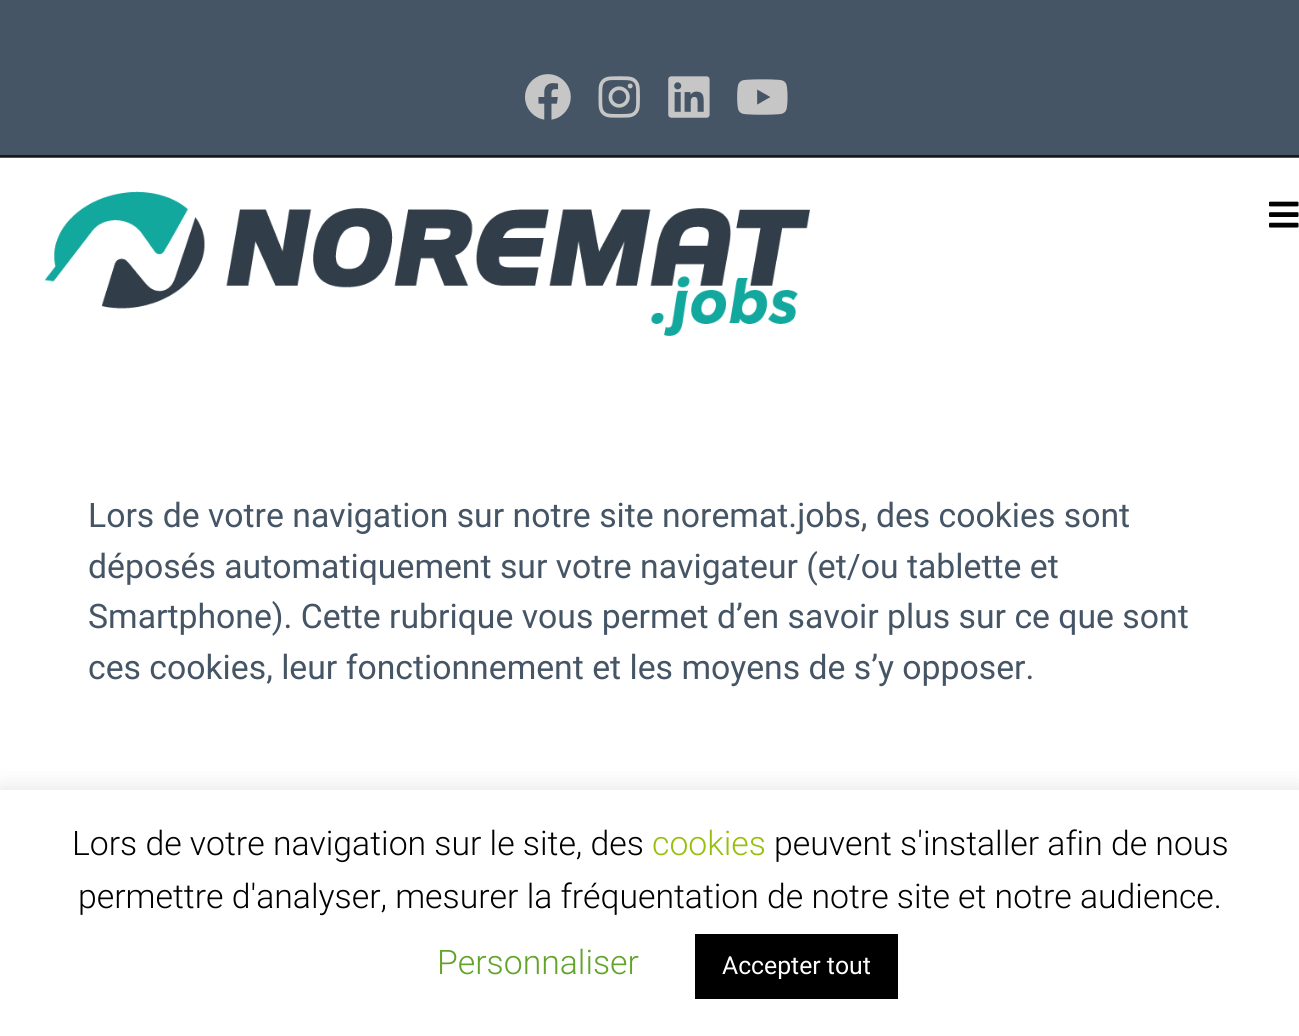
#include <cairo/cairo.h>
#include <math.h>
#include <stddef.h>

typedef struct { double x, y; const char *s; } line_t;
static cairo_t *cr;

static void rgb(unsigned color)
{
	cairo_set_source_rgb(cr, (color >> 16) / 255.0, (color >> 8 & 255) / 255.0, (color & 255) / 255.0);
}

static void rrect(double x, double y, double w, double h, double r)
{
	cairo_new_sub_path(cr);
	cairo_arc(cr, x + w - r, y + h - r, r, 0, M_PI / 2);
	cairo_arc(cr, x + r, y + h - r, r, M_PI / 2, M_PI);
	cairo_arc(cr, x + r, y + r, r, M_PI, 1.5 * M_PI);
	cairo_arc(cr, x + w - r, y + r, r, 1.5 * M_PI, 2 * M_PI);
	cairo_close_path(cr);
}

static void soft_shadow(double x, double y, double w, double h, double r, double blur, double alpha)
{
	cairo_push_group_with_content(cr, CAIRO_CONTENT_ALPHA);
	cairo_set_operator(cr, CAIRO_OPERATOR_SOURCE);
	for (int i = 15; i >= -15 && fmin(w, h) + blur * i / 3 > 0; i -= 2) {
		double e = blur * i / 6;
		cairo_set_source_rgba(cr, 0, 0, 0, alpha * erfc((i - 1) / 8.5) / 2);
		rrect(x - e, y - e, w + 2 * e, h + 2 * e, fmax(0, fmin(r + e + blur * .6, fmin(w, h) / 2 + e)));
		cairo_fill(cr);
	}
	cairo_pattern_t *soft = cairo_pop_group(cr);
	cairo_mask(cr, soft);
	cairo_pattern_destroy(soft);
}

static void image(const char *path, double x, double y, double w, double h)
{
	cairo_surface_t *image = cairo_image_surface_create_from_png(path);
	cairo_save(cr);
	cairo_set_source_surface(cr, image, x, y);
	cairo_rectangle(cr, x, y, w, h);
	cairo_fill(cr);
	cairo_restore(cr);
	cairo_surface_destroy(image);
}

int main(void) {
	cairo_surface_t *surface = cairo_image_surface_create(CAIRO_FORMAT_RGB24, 1299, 1036);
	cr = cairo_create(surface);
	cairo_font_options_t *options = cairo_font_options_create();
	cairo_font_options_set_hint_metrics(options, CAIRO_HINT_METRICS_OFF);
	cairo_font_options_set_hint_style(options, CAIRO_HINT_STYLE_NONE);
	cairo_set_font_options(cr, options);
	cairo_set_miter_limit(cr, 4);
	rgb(0xffffff);
	cairo_paint(cr);
	rgb(0x455565);
	cairo_rectangle(cr, 0, 0, 1299, 158);
	cairo_fill(cr);
	rgb(0x161819);
	cairo_rectangle(cr, 0, 155, 1299, 2);
	cairo_fill(cr);
	image("img/1.png", 525, 74, 46, 46);
	image("img/2.png", 598, 76, 42, 42);
	image("img/3.png", 668, 76, 42, 42);
	image("img/4.png", 737, 79, 51, 36);
	image("img/5.png", 45, 191, 765, 145);
	image("img/6.png", 1269, 201, 30, 27);
	rgb(0xacabab);
	soft_shadow(0, 788, 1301, 247, 0, 11, 0.3);
	rgb(0xffffff);
	cairo_rectangle(cr, 0, 790, 1299, 246);
	cairo_fill(cr);
	rgb(0x000000);
	cairo_rectangle(cr, 695, 934, 203, 65);
	cairo_fill(cr);
	cairo_select_font_face(cr, "Roboto", CAIRO_FONT_SLANT_NORMAL, CAIRO_FONT_WEIGHT_NORMAL);
	cairo_set_font_size(cr, 33.75);
	rgb(0x455565);
	{
		static const line_t items[] = {
			{88, 527, "Lors de votre navigation sur notre site noremat.jobs, des cookies sont"},
			{88, 578, "déposés automatiquement sur votre navigateur (et/ou tablette et"},
			{88, 628, "Smartphone). Cette rubrique vous permet d’en savoir plus sur ce que sont"},
			{88, 679, "ces cookies, leur fonctionnement et les moyens de s’y opposer."},
		};
		for (size_t i = 0; i < sizeof items / sizeof *items; i++) {
			cairo_move_to(cr, items[i].x, items[i].y);
			cairo_show_text(cr, items[i].s);
		}
	}
	cairo_select_font_face(cr, "Roboto Light", CAIRO_FONT_SLANT_NORMAL, CAIRO_FONT_WEIGHT_NORMAL);
	rgb(0x000000);
	cairo_move_to(cr, 72, 855);
	cairo_show_text(cr, "Lors de votre navigation sur le site, des");
	rgb(0x97bf0d);
	cairo_move_to(cr, 652, 855);
	cairo_show_text(cr, "cookies");
	rgb(0x000000);
	cairo_move_to(cr, 774, 855);
	cairo_show_text(cr, "peuvent s'installer afin de nous");
	cairo_move_to(cr, 78, 908);
	cairo_show_text(cr, "permettre d'analyser, mesurer la fréquentation de notre site et notre audience.");
	rgb(0x62a329);
	cairo_move_to(cr, 437, 974);
	cairo_show_text(cr, "Personnaliser");
	cairo_select_font_face(cr, "Roboto", CAIRO_FONT_SLANT_NORMAL, CAIRO_FONT_WEIGHT_NORMAL);
	cairo_set_font_size(cr, 24.75);
	rgb(0xffffff);
	cairo_move_to(cr, 722, 974);
	cairo_show_text(cr, "Accepter tout");
	cairo_surface_write_to_png(surface, "page.png");
	cairo_font_options_destroy(options);
	cairo_destroy(cr);
	cairo_surface_destroy(surface);
	return 0;
}
